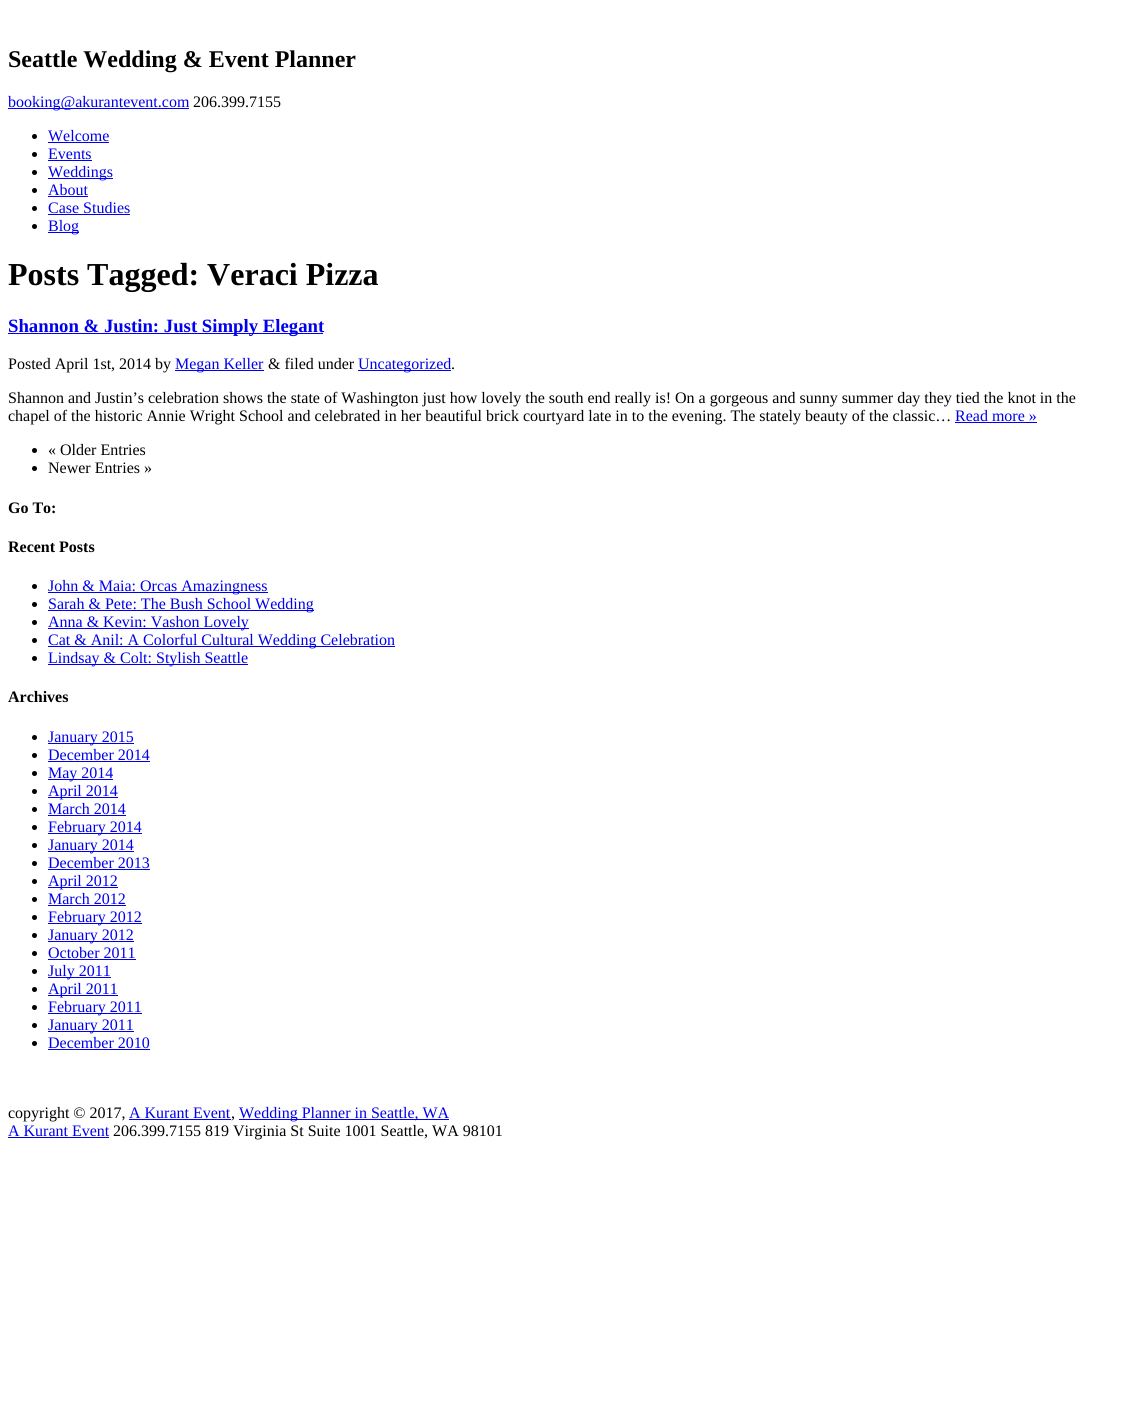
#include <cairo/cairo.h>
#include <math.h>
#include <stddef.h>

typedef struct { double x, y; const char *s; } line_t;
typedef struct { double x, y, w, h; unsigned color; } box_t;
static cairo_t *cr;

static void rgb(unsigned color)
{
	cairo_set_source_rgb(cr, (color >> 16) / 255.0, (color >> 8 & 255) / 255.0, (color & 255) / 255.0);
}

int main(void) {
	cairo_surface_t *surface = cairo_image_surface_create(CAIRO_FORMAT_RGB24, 1123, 1424);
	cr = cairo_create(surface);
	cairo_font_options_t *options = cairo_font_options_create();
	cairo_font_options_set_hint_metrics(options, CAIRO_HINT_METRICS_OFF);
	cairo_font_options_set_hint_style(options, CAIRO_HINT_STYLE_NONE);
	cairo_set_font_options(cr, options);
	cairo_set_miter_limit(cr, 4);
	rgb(0xffffff);
	cairo_paint(cr);
	rgb(0x0000ee);
	cairo_rectangle(cr, 8, 108, 181, 1);
	cairo_fill(cr);
	rgb(0x000000);
	cairo_arc(cr, 34.5, 136.5, 2.5, 0, 2 * M_PI);
	cairo_fill(cr);
	rgb(0x0000ee);
	cairo_rectangle(cr, 48, 142, 61, 1);
	cairo_fill(cr);
	rgb(0x000000);
	cairo_arc(cr, 34.5, 154.5, 2.5, 0, 2 * M_PI);
	cairo_fill(cr);
	rgb(0x0000ee);
	cairo_rectangle(cr, 48, 160, 44, 1);
	cairo_fill(cr);
	rgb(0x000000);
	cairo_arc(cr, 34.5, 172.5, 2.5, 0, 2 * M_PI);
	cairo_fill(cr);
	rgb(0x0000ee);
	cairo_rectangle(cr, 48, 178, 65, 1);
	cairo_fill(cr);
	rgb(0x000000);
	cairo_arc(cr, 34.5, 190.5, 2.5, 0, 2 * M_PI);
	cairo_fill(cr);
	rgb(0x0000ee);
	cairo_rectangle(cr, 48, 196, 40, 1);
	cairo_fill(cr);
	rgb(0x000000);
	cairo_arc(cr, 34.5, 208.5, 2.5, 0, 2 * M_PI);
	cairo_fill(cr);
	rgb(0x0000ee);
	cairo_rectangle(cr, 48, 214, 82, 1);
	cairo_fill(cr);
	rgb(0x000000);
	cairo_arc(cr, 34.5, 226.5, 2.5, 0, 2 * M_PI);
	cairo_fill(cr);
	{
		static const box_t items[] = {
			{48, 232, 31, 1, 0x0000ee},
			{8, 333, 315, 1, 0x0000ee},
			{175, 370, 89, 1, 0x0000ee},
			{358, 370, 93, 1, 0x0000ee},
			{955, 422, 82, 1, 0x0000ee},
		};
		for (size_t i = 0; i < sizeof items / sizeof *items; i++) {
			rgb(items[i].color);
			cairo_rectangle(cr, items[i].x, items[i].y, items[i].w, items[i].h);
			cairo_fill(cr);
		}
	}
	rgb(0x000000);
	cairo_arc(cr, 34.5, 450.5, 2.5, 0, 2 * M_PI);
	cairo_fill(cr);
	cairo_arc(cr, 34.5, 468.5, 2.5, 0, 2 * M_PI);
	cairo_fill(cr);
	cairo_arc(cr, 34.5, 586.5, 2.5, 0, 2 * M_PI);
	cairo_fill(cr);
	rgb(0x0000ee);
	cairo_rectangle(cr, 48, 592, 220, 1);
	cairo_fill(cr);
	rgb(0x000000);
	cairo_arc(cr, 34.5, 604.5, 2.5, 0, 2 * M_PI);
	cairo_fill(cr);
	rgb(0x0000ee);
	cairo_rectangle(cr, 48, 610, 266, 1);
	cairo_fill(cr);
	rgb(0x000000);
	cairo_arc(cr, 34.5, 622.5, 2.5, 0, 2 * M_PI);
	cairo_fill(cr);
	rgb(0x0000ee);
	cairo_rectangle(cr, 48, 628, 201, 1);
	cairo_fill(cr);
	rgb(0x000000);
	cairo_arc(cr, 34.5, 640.5, 2.5, 0, 2 * M_PI);
	cairo_fill(cr);
	rgb(0x0000ee);
	cairo_rectangle(cr, 48, 646, 347, 1);
	cairo_fill(cr);
	rgb(0x000000);
	cairo_arc(cr, 34.5, 658.5, 2.5, 0, 2 * M_PI);
	cairo_fill(cr);
	rgb(0x0000ee);
	cairo_rectangle(cr, 48, 664, 200, 1);
	cairo_fill(cr);
	rgb(0x000000);
	cairo_arc(cr, 34.5, 737.5, 2.5, 0, 2 * M_PI);
	cairo_fill(cr);
	rgb(0x0000ee);
	cairo_rectangle(cr, 48, 743, 86, 1);
	cairo_fill(cr);
	rgb(0x000000);
	cairo_arc(cr, 34.5, 755.5, 2.5, 0, 2 * M_PI);
	cairo_fill(cr);
	rgb(0x0000ee);
	cairo_rectangle(cr, 48, 761, 102, 1);
	cairo_fill(cr);
	rgb(0x000000);
	cairo_arc(cr, 34.5, 773.5, 2.5, 0, 2 * M_PI);
	cairo_fill(cr);
	rgb(0x0000ee);
	cairo_rectangle(cr, 48, 779, 65, 1);
	cairo_fill(cr);
	rgb(0x000000);
	cairo_arc(cr, 34.5, 791.5, 2.5, 0, 2 * M_PI);
	cairo_fill(cr);
	rgb(0x0000ee);
	cairo_rectangle(cr, 48, 797, 70, 1);
	cairo_fill(cr);
	rgb(0x000000);
	cairo_arc(cr, 34.5, 809.5, 2.5, 0, 2 * M_PI);
	cairo_fill(cr);
	rgb(0x0000ee);
	cairo_rectangle(cr, 48, 815, 78, 1);
	cairo_fill(cr);
	rgb(0x000000);
	cairo_arc(cr, 34.5, 827.5, 2.5, 0, 2 * M_PI);
	cairo_fill(cr);
	rgb(0x0000ee);
	cairo_rectangle(cr, 48, 833, 94, 1);
	cairo_fill(cr);
	rgb(0x000000);
	cairo_arc(cr, 34.5, 845.5, 2.5, 0, 2 * M_PI);
	cairo_fill(cr);
	rgb(0x0000ee);
	cairo_rectangle(cr, 48, 851, 86, 1);
	cairo_fill(cr);
	rgb(0x000000);
	cairo_arc(cr, 34.5, 863.5, 2.5, 0, 2 * M_PI);
	cairo_fill(cr);
	rgb(0x0000ee);
	cairo_rectangle(cr, 48, 869, 102, 1);
	cairo_fill(cr);
	rgb(0x000000);
	cairo_arc(cr, 34.5, 881.5, 2.5, 0, 2 * M_PI);
	cairo_fill(cr);
	rgb(0x0000ee);
	cairo_rectangle(cr, 48, 887, 70, 1);
	cairo_fill(cr);
	rgb(0x000000);
	cairo_arc(cr, 34.5, 899.5, 2.5, 0, 2 * M_PI);
	cairo_fill(cr);
	rgb(0x0000ee);
	cairo_rectangle(cr, 48, 905, 78, 1);
	cairo_fill(cr);
	rgb(0x000000);
	cairo_arc(cr, 34.5, 917.5, 2.5, 0, 2 * M_PI);
	cairo_fill(cr);
	rgb(0x0000ee);
	cairo_rectangle(cr, 48, 923, 94, 1);
	cairo_fill(cr);
	rgb(0x000000);
	cairo_arc(cr, 34.5, 935.5, 2.5, 0, 2 * M_PI);
	cairo_fill(cr);
	rgb(0x0000ee);
	cairo_rectangle(cr, 48, 941, 86, 1);
	cairo_fill(cr);
	rgb(0x000000);
	cairo_arc(cr, 34.5, 953.5, 2.5, 0, 2 * M_PI);
	cairo_fill(cr);
	rgb(0x0000ee);
	cairo_rectangle(cr, 48, 959, 88, 1);
	cairo_fill(cr);
	rgb(0x000000);
	cairo_arc(cr, 34.5, 971.5, 2.5, 0, 2 * M_PI);
	cairo_fill(cr);
	rgb(0x0000ee);
	cairo_rectangle(cr, 48, 977, 63, 1);
	cairo_fill(cr);
	rgb(0x000000);
	cairo_arc(cr, 34.5, 989.5, 2.5, 0, 2 * M_PI);
	cairo_fill(cr);
	rgb(0x0000ee);
	cairo_rectangle(cr, 48, 995, 70, 1);
	cairo_fill(cr);
	rgb(0x000000);
	cairo_arc(cr, 34.5, 1007.5, 2.5, 0, 2 * M_PI);
	cairo_fill(cr);
	rgb(0x0000ee);
	cairo_rectangle(cr, 48, 1013, 94, 1);
	cairo_fill(cr);
	rgb(0x000000);
	cairo_arc(cr, 34.5, 1025.5, 2.5, 0, 2 * M_PI);
	cairo_fill(cr);
	rgb(0x0000ee);
	cairo_rectangle(cr, 48, 1031, 86, 1);
	cairo_fill(cr);
	rgb(0x000000);
	cairo_arc(cr, 34.5, 1043.5, 2.5, 0, 2 * M_PI);
	cairo_fill(cr);
	{
		static const box_t items[] = {
			{48, 1049, 102, 1, 0x0000ee},
			{129, 1119, 102, 1, 0x0000ee},
			{239, 1119, 210, 1, 0x0000ee},
			{8, 1137, 101, 1, 0x0000ee},
		};
		for (size_t i = 0; i < sizeof items / sizeof *items; i++) {
			rgb(items[i].color);
			cairo_rectangle(cr, items[i].x, items[i].y, items[i].w, items[i].h);
			cairo_fill(cr);
		}
	}
	cairo_select_font_face(cr, "Liberation Serif", CAIRO_FONT_SLANT_NORMAL, CAIRO_FONT_WEIGHT_BOLD);
	cairo_set_font_size(cr, 24);
	rgb(0x000000);
	cairo_move_to(cr, 8, 67);
	cairo_show_text(cr, "Seattle Wedding & Event Planner");
	cairo_select_font_face(cr, "Liberation Serif", CAIRO_FONT_SLANT_NORMAL, CAIRO_FONT_WEIGHT_NORMAL);
	cairo_set_font_size(cr, 16);
	rgb(0x0000ee);
	cairo_move_to(cr, 8, 107);
	cairo_show_text(cr, "booking@akurantevent.com");
	rgb(0x000000);
	cairo_move_to(cr, 193, 107);
	cairo_show_text(cr, "206.399.7155");
	rgb(0x0000ee);
	{
		static const line_t items[] = {
			{48, 141, "Welcome"},
			{48, 159, "Events"},
			{48, 177, "Weddings"},
			{48, 195, "About"},
			{48, 213, "Case Studies"},
			{48, 231, "Blog"},
		};
		for (size_t i = 0; i < sizeof items / sizeof *items; i++) {
			cairo_move_to(cr, items[i].x, items[i].y);
			cairo_show_text(cr, items[i].s);
		}
	}
	cairo_select_font_face(cr, "Liberation Serif", CAIRO_FONT_SLANT_NORMAL, CAIRO_FONT_WEIGHT_BOLD);
	cairo_set_font_size(cr, 32);
	rgb(0x000000);
	cairo_move_to(cr, 8, 285);
	cairo_show_text(cr, "Posts Tagged: Veraci Pizza");
	cairo_set_font_size(cr, 18.75);
	rgb(0x0000ee);
	cairo_move_to(cr, 8, 332);
	cairo_show_text(cr, "Shannon & Justin: Just Simply Elegant");
	cairo_select_font_face(cr, "Liberation Serif", CAIRO_FONT_SLANT_NORMAL, CAIRO_FONT_WEIGHT_NORMAL);
	cairo_set_font_size(cr, 16);
	rgb(0x000000);
	cairo_move_to(cr, 8, 369);
	cairo_show_text(cr, "Posted April 1st, 2014 by");
	rgb(0x0000ee);
	cairo_move_to(cr, 175, 369);
	cairo_show_text(cr, "Megan Keller");
	rgb(0x000000);
	cairo_move_to(cr, 268, 369);
	cairo_show_text(cr, "& filed under");
	rgb(0x0000ee);
	cairo_move_to(cr, 358, 369);
	cairo_show_text(cr, "Uncategorized");
	rgb(0x000000);
	{
		static const line_t items[] = {
			{451, 369, "."},
			{8, 403, "Shannon and Justin’s celebration shows the state of Washington just how lovely the south end really is! On a gorgeous and sunny summer day they tied the knot in the"},
			{8, 421, "chapel of the historic Annie Wright School and celebrated in her beautiful brick courtyard late in to the evening. The stately beauty of the classic…"},
		};
		for (size_t i = 0; i < sizeof items / sizeof *items; i++) {
			cairo_move_to(cr, items[i].x, items[i].y);
			cairo_show_text(cr, items[i].s);
		}
	}
	rgb(0x0000ee);
	cairo_move_to(cr, 955, 421);
	cairo_show_text(cr, "Read more »");
	rgb(0x000000);
	cairo_move_to(cr, 48, 455);
	cairo_show_text(cr, "« Older Entries");
	cairo_move_to(cr, 48, 473);
	cairo_show_text(cr, "Newer Entries »");
	cairo_select_font_face(cr, "Liberation Serif", CAIRO_FONT_SLANT_NORMAL, CAIRO_FONT_WEIGHT_BOLD);
	cairo_move_to(cr, 8, 513);
	cairo_show_text(cr, "Go To:");
	cairo_move_to(cr, 8, 552);
	cairo_show_text(cr, "Recent Posts");
	cairo_select_font_face(cr, "Liberation Serif", CAIRO_FONT_SLANT_NORMAL, CAIRO_FONT_WEIGHT_NORMAL);
	rgb(0x0000ee);
	{
		static const line_t items[] = {
			{48, 591, "John & Maia: Orcas Amazingness"},
			{48, 609, "Sarah & Pete: The Bush School Wedding"},
			{48, 627, "Anna & Kevin: Vashon Lovely"},
			{48, 645, "Cat & Anil: A Colorful Cultural Wedding Celebration"},
			{48, 663, "Lindsay & Colt: Stylish Seattle"},
		};
		for (size_t i = 0; i < sizeof items / sizeof *items; i++) {
			cairo_move_to(cr, items[i].x, items[i].y);
			cairo_show_text(cr, items[i].s);
		}
	}
	cairo_select_font_face(cr, "Liberation Serif", CAIRO_FONT_SLANT_NORMAL, CAIRO_FONT_WEIGHT_BOLD);
	rgb(0x000000);
	cairo_move_to(cr, 8, 702);
	cairo_show_text(cr, "Archives");
	cairo_select_font_face(cr, "Liberation Serif", CAIRO_FONT_SLANT_NORMAL, CAIRO_FONT_WEIGHT_NORMAL);
	rgb(0x0000ee);
	{
		static const line_t items[] = {
			{48, 742, "January 2015"},
			{48, 760, "December 2014"},
			{48, 778, "May 2014"},
			{48, 796, "April 2014"},
			{48, 814, "March 2014"},
			{48, 832, "February 2014"},
			{48, 850, "January 2014"},
			{48, 868, "December 2013"},
			{48, 886, "April 2012"},
			{48, 904, "March 2012"},
			{48, 922, "February 2012"},
			{48, 940, "January 2012"},
			{48, 958, "October 2011"},
			{48, 976, "July 2011"},
			{48, 994, "April 2011"},
			{48, 1012, "February 2011"},
			{48, 1030, "January 2011"},
			{48, 1048, "December 2010"},
		};
		for (size_t i = 0; i < sizeof items / sizeof *items; i++) {
			cairo_move_to(cr, items[i].x, items[i].y);
			cairo_show_text(cr, items[i].s);
		}
	}
	rgb(0x000000);
	cairo_move_to(cr, 8, 1118);
	cairo_show_text(cr, "copyright © 2017,");
	rgb(0x0000ee);
	cairo_move_to(cr, 129, 1118);
	cairo_show_text(cr, "A Kurant Event");
	rgb(0x000000);
	cairo_move_to(cr, 231, 1118);
	cairo_show_text(cr, ",");
	rgb(0x0000ee);
	cairo_move_to(cr, 239, 1118);
	cairo_show_text(cr, "Wedding Planner in Seattle, WA");
	cairo_move_to(cr, 8, 1136);
	cairo_show_text(cr, "A Kurant Event");
	rgb(0x000000);
	cairo_move_to(cr, 113, 1136);
	cairo_show_text(cr, "206.399.7155 819 Virginia St Suite 1001 Seattle, WA 98101");
	cairo_surface_write_to_png(surface, "page.png");
	cairo_font_options_destroy(options);
	cairo_destroy(cr);
	cairo_surface_destroy(surface);
	return 0;
}
